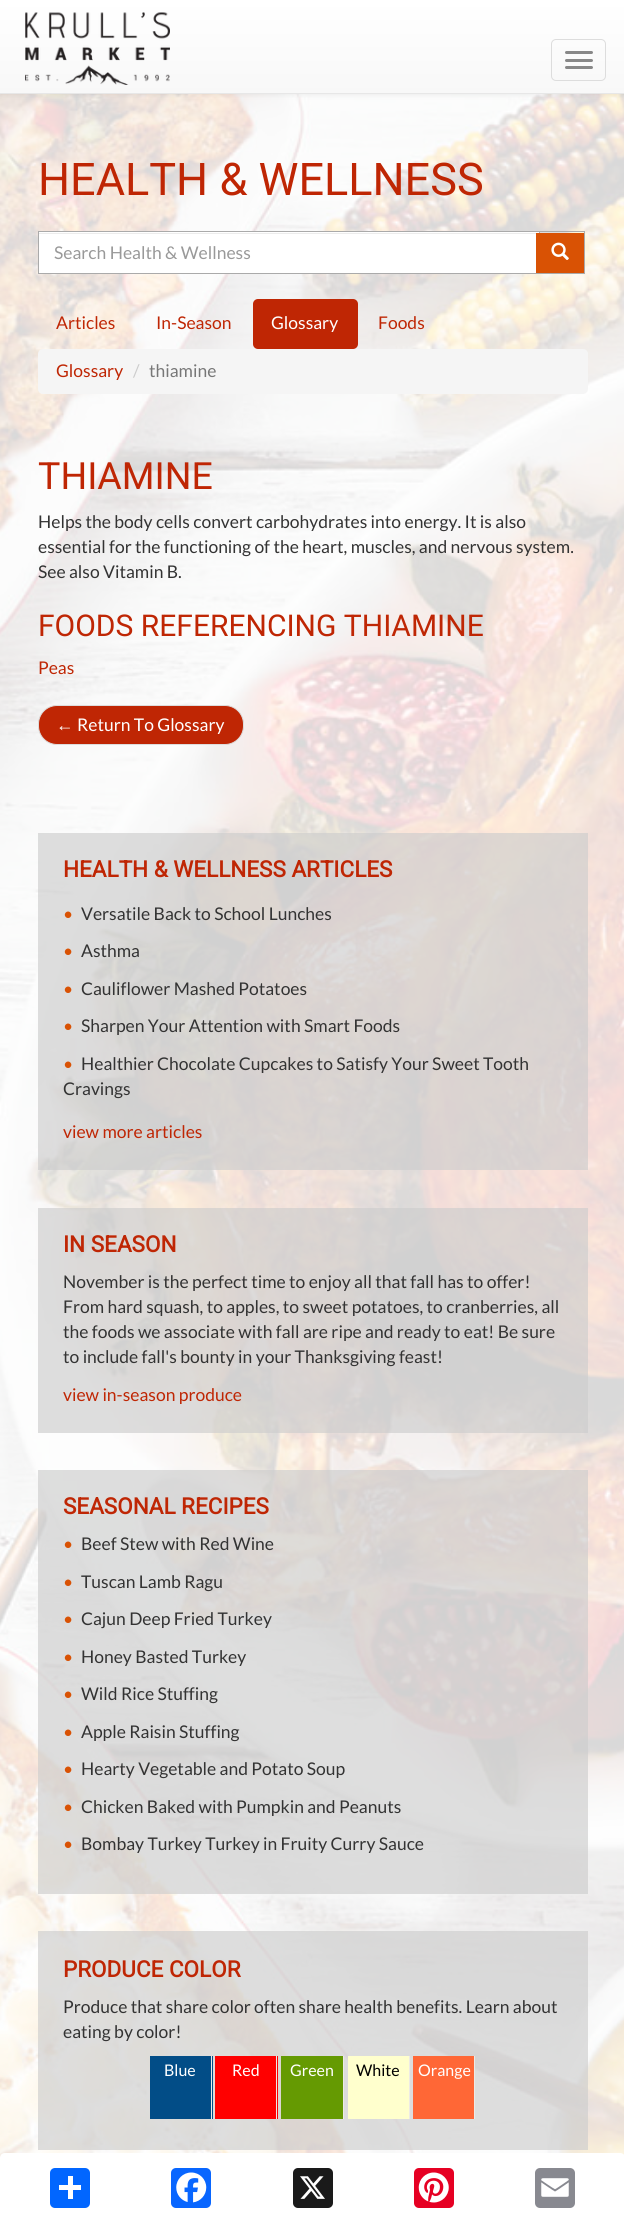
#include <cairo/cairo.h>
#include <math.h>
#include <stddef.h>

typedef struct { double x, y; const char *s; } line_t;
typedef struct { double x, y, w, h; unsigned color; } box_t;
static cairo_t *cr;

static void rgb(unsigned color)
{
	cairo_set_source_rgb(cr, (color >> 16) / 255.0, (color >> 8 & 255) / 255.0, (color & 255) / 255.0);
}

static void rrect(double x, double y, double w, double h, double r)
{
	cairo_new_sub_path(cr);
	cairo_arc(cr, x + w - r, y + h - r, r, 0, M_PI / 2);
	cairo_arc(cr, x + r, y + h - r, r, M_PI / 2, M_PI);
	cairo_arc(cr, x + r, y + r, r, M_PI, 1.5 * M_PI);
	cairo_arc(cr, x + w - r, y + r, r, 1.5 * M_PI, 2 * M_PI);
	cairo_close_path(cr);
}

static void soft_shadow(double x, double y, double w, double h, double r, double blur, double alpha)
{
	cairo_push_group_with_content(cr, CAIRO_CONTENT_ALPHA);
	cairo_set_operator(cr, CAIRO_OPERATOR_SOURCE);
	for (int i = 15; i >= -15 && fmin(w, h) + blur * i / 3 > 0; i -= 2) {
		double e = blur * i / 6;
		cairo_set_source_rgba(cr, 0, 0, 0, alpha * erfc((i - 1) / 8.5) / 2);
		rrect(x - e, y - e, w + 2 * e, h + 2 * e, fmax(0, fmin(r + e + blur * .6, fmin(w, h) / 2 + e)));
		cairo_fill(cr);
	}
	cairo_pattern_t *soft = cairo_pop_group(cr);
	cairo_mask(cr, soft);
	cairo_pattern_destroy(soft);
}

static void image(const char *path, double x, double y, double w, double h)
{
	cairo_surface_t *image = cairo_image_surface_create_from_png(path);
	cairo_save(cr);
	cairo_set_source_surface(cr, image, x, y);
	cairo_rectangle(cr, x, y, w, h);
	cairo_fill(cr);
	cairo_restore(cr);
	cairo_surface_destroy(image);
}

int main(void) {
	cairo_surface_t *surface = cairo_image_surface_create(CAIRO_FORMAT_RGB24, 624, 2222);
	cr = cairo_create(surface);
	cairo_font_options_t *options = cairo_font_options_create();
	cairo_font_options_set_hint_metrics(options, CAIRO_HINT_METRICS_OFF);
	cairo_font_options_set_hint_style(options, CAIRO_HINT_STYLE_NONE);
	cairo_set_font_options(cr, options);
	cairo_set_miter_limit(cr, 4);
	cairo_pattern_t *gradient;
	rgb(0xffffff);
	cairo_paint(cr);
	image("img/1.png", 0, 94, 624, 2064);
	rgb(0x000000);
	soft_shadow(0, 1, 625, 94, 0, 3, 0.07);
	gradient = cairo_pattern_create_linear(313, 0, 313, 93);
	cairo_pattern_add_color_stop_rgba(gradient, 0, 1, 1, 1, 1);
	cairo_pattern_add_color_stop_rgba(gradient, 1, 0.973, 0.973, 0.973, 1);
	cairo_set_source(cr, gradient);
	cairo_pattern_destroy(gradient);
	cairo_rectangle(cr, 0, 0, 624, 93);
	cairo_fill(cr);
	rgb(0xe7e7e7);
	cairo_rectangle(cr, 0, 93, 624, 1);
	cairo_fill(cr);
	image("img/2.png", 25, 12, 145, 73);
	rrect(551.5, 39.5, 54, 41, 4.5);
	rgb(0xdddddd);
	cairo_set_line_width(cr, 1);
	cairo_stroke(cr);
	rgb(0x888888);
	rrect(565, 51, 28, 3, 1.5);
	cairo_fill(cr);
	rrect(565, 59, 28, 3, 1.5);
	cairo_fill(cr);
	rrect(565, 66, 28, 3, 1.5);
	cairo_fill(cr);
	rgb(0xffffff);
	cairo_rectangle(cr, 39, 232, 500, 41);
	cairo_fill(cr);
	rgb(0xececec);
	cairo_rectangle(cr, 39, 233, 500, 1);
	cairo_fill(cr);
	cairo_rectangle(cr, 38.5, 231.5, 501, 42);
	rgb(0xaaaaaa);
	cairo_stroke(cr);
	{
		static const box_t items[] = {
			{536, 233, 48, 40, 0xd95204},
			{536, 231, 49, 1, 0xaaaaaa},
			{584, 231, 1, 43, 0xaaaaaa},
			{536, 273, 49, 1, 0xaaaaaa},
		};
		for (size_t i = 0; i < sizeof items / sizeof *items; i++) {
			rgb(items[i].color);
			cairo_rectangle(cr, items[i].x, items[i].y, items[i].w, items[i].h);
			cairo_fill(cr);
		}
	}
	image("img/3.png", 551, 242, 18, 18);
	rgb(0xbf2604);
	rrect(253, 299, 105, 50, 5);
	cairo_fill(cr);
	rgb(0xf5f5f5);
	rrect(38, 349, 550, 45, 5);
	cairo_fill(cr);
	rgb(0xbf2604);
	rrect(38.5, 705.5, 205, 39, 18.5);
	cairo_fill_preserve(cr);
	rgb(0xdddddd);
	cairo_stroke(cr);
	cairo_set_source_rgba(cr, 0.8, 0.8, 0.8, 0.65);
	cairo_rectangle(cr, 38, 833, 550, 337);
	cairo_fill(cr);
	cairo_rectangle(cr, 38, 1208, 550, 225);
	cairo_fill(cr);
	cairo_rectangle(cr, 38, 1470, 550, 424);
	cairo_fill(cr);
	cairo_rectangle(cr, 38, 1931, 550, 219);
	cairo_fill(cr);
	rgb(0x024d87);
	cairo_rectangle(cr, 150, 2056, 63, 63);
	cairo_fill(cr);
	rgb(0xedeae5);
	cairo_rectangle(cr, 211, 2056, 1, 63);
	cairo_fill(cr);
	rgb(0xff0000);
	cairo_rectangle(cr, 215, 2056, 63, 63);
	cairo_fill(cr);
	rgb(0xedeae5);
	cairo_rectangle(cr, 276, 2056, 1, 63);
	cairo_fill(cr);
	rgb(0x659a02);
	cairo_rectangle(cr, 281, 2056, 62, 63);
	cairo_fill(cr);
	rgb(0xedeae5);
	cairo_rectangle(cr, 343, 2056, 1, 63);
	cairo_fill(cr);
	rgb(0xffffcd);
	cairo_rectangle(cr, 348, 2056, 61, 63);
	cairo_fill(cr);
	rgb(0xedeae5);
	cairo_rectangle(cr, 409, 2056, 1, 63);
	cairo_fill(cr);
	rgb(0xff6736);
	cairo_rectangle(cr, 413, 2056, 61, 63);
	cairo_fill(cr);
	rgb(0xedeae5);
	cairo_rectangle(cr, 474, 2056, 1, 63);
	cairo_fill(cr);
	rgb(0xffffff);
	cairo_new_path(cr);
	cairo_move_to(cr, 5, 2153);
	cairo_line_to(cr, 620, 2153);
	cairo_curve_to(cr, 623, 2153, 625, 2155, 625, 2158);
	cairo_line_to(cr, 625, 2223);
	cairo_line_to(cr, 0, 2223);
	cairo_line_to(cr, 0, 2158);
	cairo_curve_to(cr, 0, 2155, 2, 2153, 5, 2153);
	cairo_close_path(cr);
	cairo_fill(cr);
	rgb(0x0166ff);
	rrect(50, 2168, 40, 40, 5);
	cairo_fill(cr);
	rgb(0xffffff);
	cairo_rectangle(cr, 68, 2176, 5, 23);
	cairo_fill(cr);
	cairo_rectangle(cr, 59, 2185, 22, 5);
	cairo_fill(cr);
	rgb(0x0866ff);
	rrect(171, 2168, 40, 40, 5);
	cairo_fill(cr);
	image("img/4.png", 176, 2172, 31, 31);
	rgb(0x1a1a1a);
	rrect(293, 2168, 40, 40, 5);
	cairo_fill(cr);
	image("img/5.png", 300, 2176, 25, 23);
	rgb(0xe60023);
	rrect(414, 2168, 40, 40, 5);
	cairo_fill(cr);
	image("img/6.png", 418, 2172, 31, 31);
	rgb(0x888990);
	rrect(535, 2168, 40, 40, 5);
	cairo_fill(cr);
	image("img/7.png", 541, 2178, 28, 19);
	cairo_select_font_face(cr, "Roboto", CAIRO_FONT_SLANT_NORMAL, CAIRO_FONT_WEIGHT_NORMAL);
	cairo_set_font_size(cr, 45);
	rgb(0xbf2604);
	cairo_move_to(cr, 38, 195);
	cairo_show_text(cr, "HEALTH & WELLNESS");
	cairo_select_font_face(cr, "Lato", CAIRO_FONT_SLANT_NORMAL, CAIRO_FONT_WEIGHT_NORMAL);
	cairo_set_font_size(cr, 17.5);
	rgb(0x999999);
	cairo_move_to(cr, 54, 259);
	cairo_show_text(cr, "Search Health & Wellness");
	rgb(0xbf2604);
	cairo_move_to(cr, 56, 329);
	cairo_show_text(cr, "Articles");
	cairo_move_to(cr, 156, 329);
	cairo_show_text(cr, "In-Season");
	rgb(0xffffff);
	cairo_move_to(cr, 271, 329);
	cairo_show_text(cr, "Glossary");
	rgb(0xbf2604);
	cairo_move_to(cr, 378, 329);
	cairo_show_text(cr, "Foods");
	cairo_move_to(cr, 56, 377);
	cairo_show_text(cr, "Glossary");
	rgb(0xcccccc);
	cairo_move_to(cr, 133, 377);
	cairo_show_text(cr, "/");
	rgb(0x777777);
	cairo_move_to(cr, 149, 377);
	cairo_show_text(cr, "thiamine");
	cairo_select_font_face(cr, "Roboto", CAIRO_FONT_SLANT_NORMAL, CAIRO_FONT_WEIGHT_NORMAL);
	cairo_set_font_size(cr, 37.5);
	rgb(0xbf2604);
	cairo_move_to(cr, 38, 489);
	cairo_show_text(cr, "THIAMINE");
	cairo_select_font_face(cr, "Lato", CAIRO_FONT_SLANT_NORMAL, CAIRO_FONT_WEIGHT_NORMAL);
	cairo_set_font_size(cr, 17.5);
	rgb(0x333333);
	{
		static const line_t items[] = {
			{38, 528, "Helps the body cells convert carbohydrates into energy. It is also"},
			{38, 553, "essential for the functioning of the heart, muscles, and nervous system."},
			{38, 578, "See also Vitamin B."},
		};
		for (size_t i = 0; i < sizeof items / sizeof *items; i++) {
			cairo_move_to(cr, items[i].x, items[i].y);
			cairo_show_text(cr, items[i].s);
		}
	}
	cairo_select_font_face(cr, "Roboto", CAIRO_FONT_SLANT_NORMAL, CAIRO_FONT_WEIGHT_NORMAL);
	cairo_set_font_size(cr, 30);
	rgb(0xbf2604);
	cairo_move_to(cr, 38, 636);
	cairo_show_text(cr, "FOODS REFERENCING THIAMINE");
	cairo_select_font_face(cr, "Lato", CAIRO_FONT_SLANT_NORMAL, CAIRO_FONT_WEIGHT_NORMAL);
	cairo_set_font_size(cr, 17.5);
	cairo_move_to(cr, 38, 674);
	cairo_show_text(cr, "Peas");
	cairo_select_font_face(cr, "Liberation Sans", CAIRO_FONT_SLANT_NORMAL, CAIRO_FONT_WEIGHT_NORMAL);
	rgb(0xffffff);
	cairo_move_to(cr, 56, 731);
	cairo_show_text(cr, "←");
	cairo_select_font_face(cr, "Lato", CAIRO_FONT_SLANT_NORMAL, CAIRO_FONT_WEIGHT_NORMAL);
	cairo_move_to(cr, 77, 731);
	cairo_show_text(cr, "Return To Glossary");
	cairo_select_font_face(cr, "Roboto", CAIRO_FONT_SLANT_NORMAL, CAIRO_FONT_WEIGHT_BOLD);
	cairo_set_font_size(cr, 22.5);
	rgb(0xbf2604);
	cairo_move_to(cr, 63, 877);
	cairo_show_text(cr, "HEALTH & WELLNESS ARTICLES");
	cairo_select_font_face(cr, "Lato", CAIRO_FONT_SLANT_NORMAL, CAIRO_FONT_WEIGHT_NORMAL);
	cairo_set_font_size(cr, 17.5);
	rgb(0xd95204);
	cairo_move_to(cr, 63, 920);
	cairo_show_text(cr, "•");
	rgb(0x333333);
	cairo_move_to(cr, 81, 920);
	cairo_show_text(cr, "Versatile Back to School Lunches");
	rgb(0xd95204);
	cairo_move_to(cr, 63, 957);
	cairo_show_text(cr, "•");
	rgb(0x333333);
	cairo_move_to(cr, 81, 957);
	cairo_show_text(cr, "Asthma");
	rgb(0xd95204);
	cairo_move_to(cr, 63, 995);
	cairo_show_text(cr, "•");
	rgb(0x333333);
	cairo_move_to(cr, 81, 995);
	cairo_show_text(cr, "Cauliflower Mashed Potatoes");
	rgb(0xd95204);
	cairo_move_to(cr, 63, 1032);
	cairo_show_text(cr, "•");
	rgb(0x333333);
	cairo_move_to(cr, 81, 1032);
	cairo_show_text(cr, "Sharpen Your Attention with Smart Foods");
	rgb(0xd95204);
	cairo_move_to(cr, 63, 1070);
	cairo_show_text(cr, "•");
	rgb(0x333333);
	cairo_move_to(cr, 81, 1070);
	cairo_show_text(cr, "Healthier Chocolate Cupcakes to Satisfy Your Sweet Tooth");
	cairo_move_to(cr, 63, 1095);
	cairo_show_text(cr, "Cravings");
	rgb(0xbf2604);
	cairo_move_to(cr, 63, 1138);
	cairo_show_text(cr, "view more articles");
	cairo_select_font_face(cr, "Roboto", CAIRO_FONT_SLANT_NORMAL, CAIRO_FONT_WEIGHT_BOLD);
	cairo_set_font_size(cr, 22.5);
	cairo_move_to(cr, 63, 1252);
	cairo_show_text(cr, "IN SEASON");
	cairo_select_font_face(cr, "Lato", CAIRO_FONT_SLANT_NORMAL, CAIRO_FONT_WEIGHT_NORMAL);
	cairo_set_font_size(cr, 17.5);
	rgb(0x333333);
	{
		static const line_t items[] = {
			{63, 1288, "November is the perfect time to enjoy all that fall has to offer!"},
			{63, 1313, "From hard squash, to apples, to sweet potatoes, to cranberries, all"},
			{63, 1338, "the foods we associate with fall are ripe and ready to eat! Be sure"},
			{63, 1363, "to include fall's bounty in your Thanksgiving feast!"},
		};
		for (size_t i = 0; i < sizeof items / sizeof *items; i++) {
			cairo_move_to(cr, items[i].x, items[i].y);
			cairo_show_text(cr, items[i].s);
		}
	}
	rgb(0xbf2604);
	cairo_move_to(cr, 63, 1401);
	cairo_show_text(cr, "view in-season produce");
	cairo_select_font_face(cr, "Roboto", CAIRO_FONT_SLANT_NORMAL, CAIRO_FONT_WEIGHT_BOLD);
	cairo_set_font_size(cr, 22.5);
	cairo_move_to(cr, 63, 1514);
	cairo_show_text(cr, "SEASONAL RECIPES");
	cairo_select_font_face(cr, "Lato", CAIRO_FONT_SLANT_NORMAL, CAIRO_FONT_WEIGHT_NORMAL);
	cairo_set_font_size(cr, 17.5);
	rgb(0xd95204);
	cairo_move_to(cr, 63, 1550);
	cairo_show_text(cr, "•");
	rgb(0x333333);
	cairo_move_to(cr, 81, 1550);
	cairo_show_text(cr, "Beef Stew with Red Wine");
	rgb(0xd95204);
	cairo_move_to(cr, 63, 1588);
	cairo_show_text(cr, "•");
	rgb(0x333333);
	cairo_move_to(cr, 81, 1588);
	cairo_show_text(cr, "Tuscan Lamb Ragu");
	rgb(0xd95204);
	cairo_move_to(cr, 63, 1625);
	cairo_show_text(cr, "•");
	rgb(0x333333);
	cairo_move_to(cr, 81, 1625);
	cairo_show_text(cr, "Cajun Deep Fried Turkey");
	rgb(0xd95204);
	cairo_move_to(cr, 63, 1663);
	cairo_show_text(cr, "•");
	rgb(0x333333);
	cairo_move_to(cr, 81, 1663);
	cairo_show_text(cr, "Honey Basted Turkey");
	rgb(0xd95204);
	cairo_move_to(cr, 63, 1700);
	cairo_show_text(cr, "•");
	rgb(0x333333);
	cairo_move_to(cr, 81, 1700);
	cairo_show_text(cr, "Wild Rice Stuffing");
	rgb(0xd95204);
	cairo_move_to(cr, 63, 1738);
	cairo_show_text(cr, "•");
	rgb(0x333333);
	cairo_move_to(cr, 81, 1738);
	cairo_show_text(cr, "Apple Raisin Stuffing");
	rgb(0xd95204);
	cairo_move_to(cr, 63, 1775);
	cairo_show_text(cr, "•");
	rgb(0x333333);
	cairo_move_to(cr, 81, 1775);
	cairo_show_text(cr, "Hearty Vegetable and Potato Soup");
	rgb(0xd95204);
	cairo_move_to(cr, 63, 1813);
	cairo_show_text(cr, "•");
	rgb(0x333333);
	cairo_move_to(cr, 81, 1813);
	cairo_show_text(cr, "Chicken Baked with Pumpkin and Peanuts");
	rgb(0xd95204);
	cairo_move_to(cr, 63, 1850);
	cairo_show_text(cr, "•");
	rgb(0x333333);
	cairo_move_to(cr, 81, 1850);
	cairo_show_text(cr, "Bombay Turkey Turkey in Fruity Curry Sauce");
	cairo_select_font_face(cr, "Roboto", CAIRO_FONT_SLANT_NORMAL, CAIRO_FONT_WEIGHT_BOLD);
	cairo_set_font_size(cr, 22.5);
	rgb(0xbf2604);
	cairo_move_to(cr, 63, 1977);
	cairo_show_text(cr, "PRODUCE COLOR");
	cairo_select_font_face(cr, "Lato", CAIRO_FONT_SLANT_NORMAL, CAIRO_FONT_WEIGHT_NORMAL);
	cairo_set_font_size(cr, 17.5);
	rgb(0x333333);
	cairo_move_to(cr, 63, 2013);
	cairo_show_text(cr, "Produce that share color often share health benefits. Learn about");
	cairo_move_to(cr, 63, 2038);
	cairo_show_text(cr, "eating by color!");
	cairo_set_font_size(cr, 16);
	rgb(0xffffff);
	{
		static const line_t items[] = {
			{164, 2076, "Blue"},
			{232, 2076, "Red"},
			{290, 2076, "Green"},
		};
		for (size_t i = 0; i < sizeof items / sizeof *items; i++) {
			cairo_move_to(cr, items[i].x, items[i].y);
			cairo_show_text(cr, items[i].s);
		}
	}
	rgb(0x000000);
	cairo_move_to(cr, 356, 2076);
	cairo_show_text(cr, "White");
	rgb(0xffffff);
	cairo_move_to(cr, 418, 2076);
	cairo_show_text(cr, "Orange");
	cairo_surface_write_to_png(surface, "page.png");
	cairo_font_options_destroy(options);
	cairo_destroy(cr);
	cairo_surface_destroy(surface);
	return 0;
}
